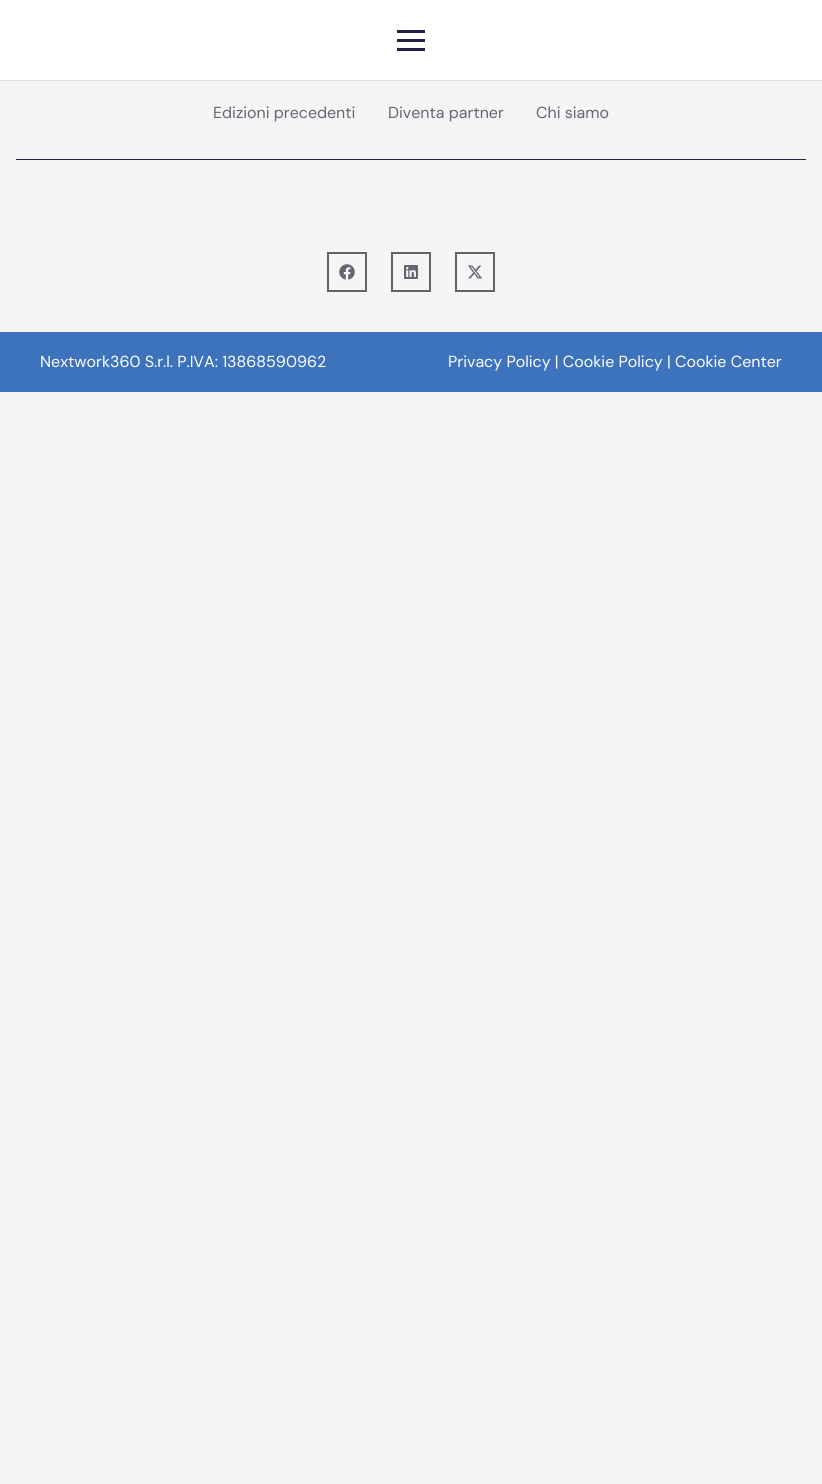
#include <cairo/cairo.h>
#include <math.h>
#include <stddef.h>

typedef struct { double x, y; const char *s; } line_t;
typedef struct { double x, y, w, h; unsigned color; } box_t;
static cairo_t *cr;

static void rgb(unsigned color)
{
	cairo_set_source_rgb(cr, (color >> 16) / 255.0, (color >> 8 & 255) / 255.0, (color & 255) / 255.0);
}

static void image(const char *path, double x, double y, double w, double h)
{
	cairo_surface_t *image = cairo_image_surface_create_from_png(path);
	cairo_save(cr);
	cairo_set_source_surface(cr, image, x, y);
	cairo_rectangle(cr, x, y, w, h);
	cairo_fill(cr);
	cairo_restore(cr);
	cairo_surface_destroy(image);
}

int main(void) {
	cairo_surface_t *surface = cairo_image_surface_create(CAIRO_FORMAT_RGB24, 822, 1484);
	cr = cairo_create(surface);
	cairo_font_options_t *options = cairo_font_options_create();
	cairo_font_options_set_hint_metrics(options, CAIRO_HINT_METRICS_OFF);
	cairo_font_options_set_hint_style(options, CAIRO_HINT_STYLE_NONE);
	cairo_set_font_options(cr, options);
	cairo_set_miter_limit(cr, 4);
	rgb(0xf5f5f5);
	cairo_paint(cr);
	{
		static const box_t items[] = {
			{0, 80, 822, 1, 0xe1e1e1},
			{0, 0, 822, 80, 0xffffff},
			{397, 39, 28, 3, 0x251d4a},
			{397, 30, 28, 3, 0x251d4a},
			{397, 48, 28, 3, 0x251d4a},
			{16, 159, 790, 1, 0x251d4a},
		};
		for (size_t i = 0; i < sizeof items / sizeof *items; i++) {
			rgb(items[i].color);
			cairo_rectangle(cr, items[i].x, items[i].y, items[i].w, items[i].h);
			cairo_fill(cr);
		}
	}
	cairo_rectangle(cr, 328, 253, 38, 38);
	rgb(0x626362);
	cairo_stroke(cr);
	image("img/1.png", 339, 264, 16, 16);
	cairo_rectangle(cr, 392, 253, 38, 38);
	cairo_stroke(cr);
	image("img/2.png", 404, 265, 14, 14);
	cairo_rectangle(cr, 456, 253, 38, 38);
	cairo_stroke(cr);
	image("img/3.png", 468, 265, 15, 14);
	rgb(0x3d72bd);
	cairo_rectangle(cr, 0, 332, 822, 60);
	cairo_fill(cr);
	cairo_select_font_face(cr, "DM Sans", CAIRO_FONT_SLANT_NORMAL, CAIRO_FONT_WEIGHT_NORMAL);
	cairo_set_font_size(cr, 16);
	rgb(0x666372);
	{
		static const line_t items[] = {
			{213, 118, "Edizioni precedenti"},
			{388, 118, "Diventa partner"},
			{536, 118, "Chi siamo"},
		};
		for (size_t i = 0; i < sizeof items / sizeof *items; i++) {
			cairo_move_to(cr, items[i].x, items[i].y);
			cairo_show_text(cr, items[i].s);
		}
	}
	rgb(0xffffff);
	cairo_move_to(cr, 40, 367);
	cairo_show_text(cr, "Nextwork360 S.r.l. P.IVA: 13868590962");
	cairo_move_to(cr, 448, 367);
	cairo_show_text(cr, "Privacy Policy | Cookie Policy | Cookie Center");
	cairo_surface_write_to_png(surface, "page.png");
	cairo_font_options_destroy(options);
	cairo_destroy(cr);
	cairo_surface_destroy(surface);
	return 0;
}
